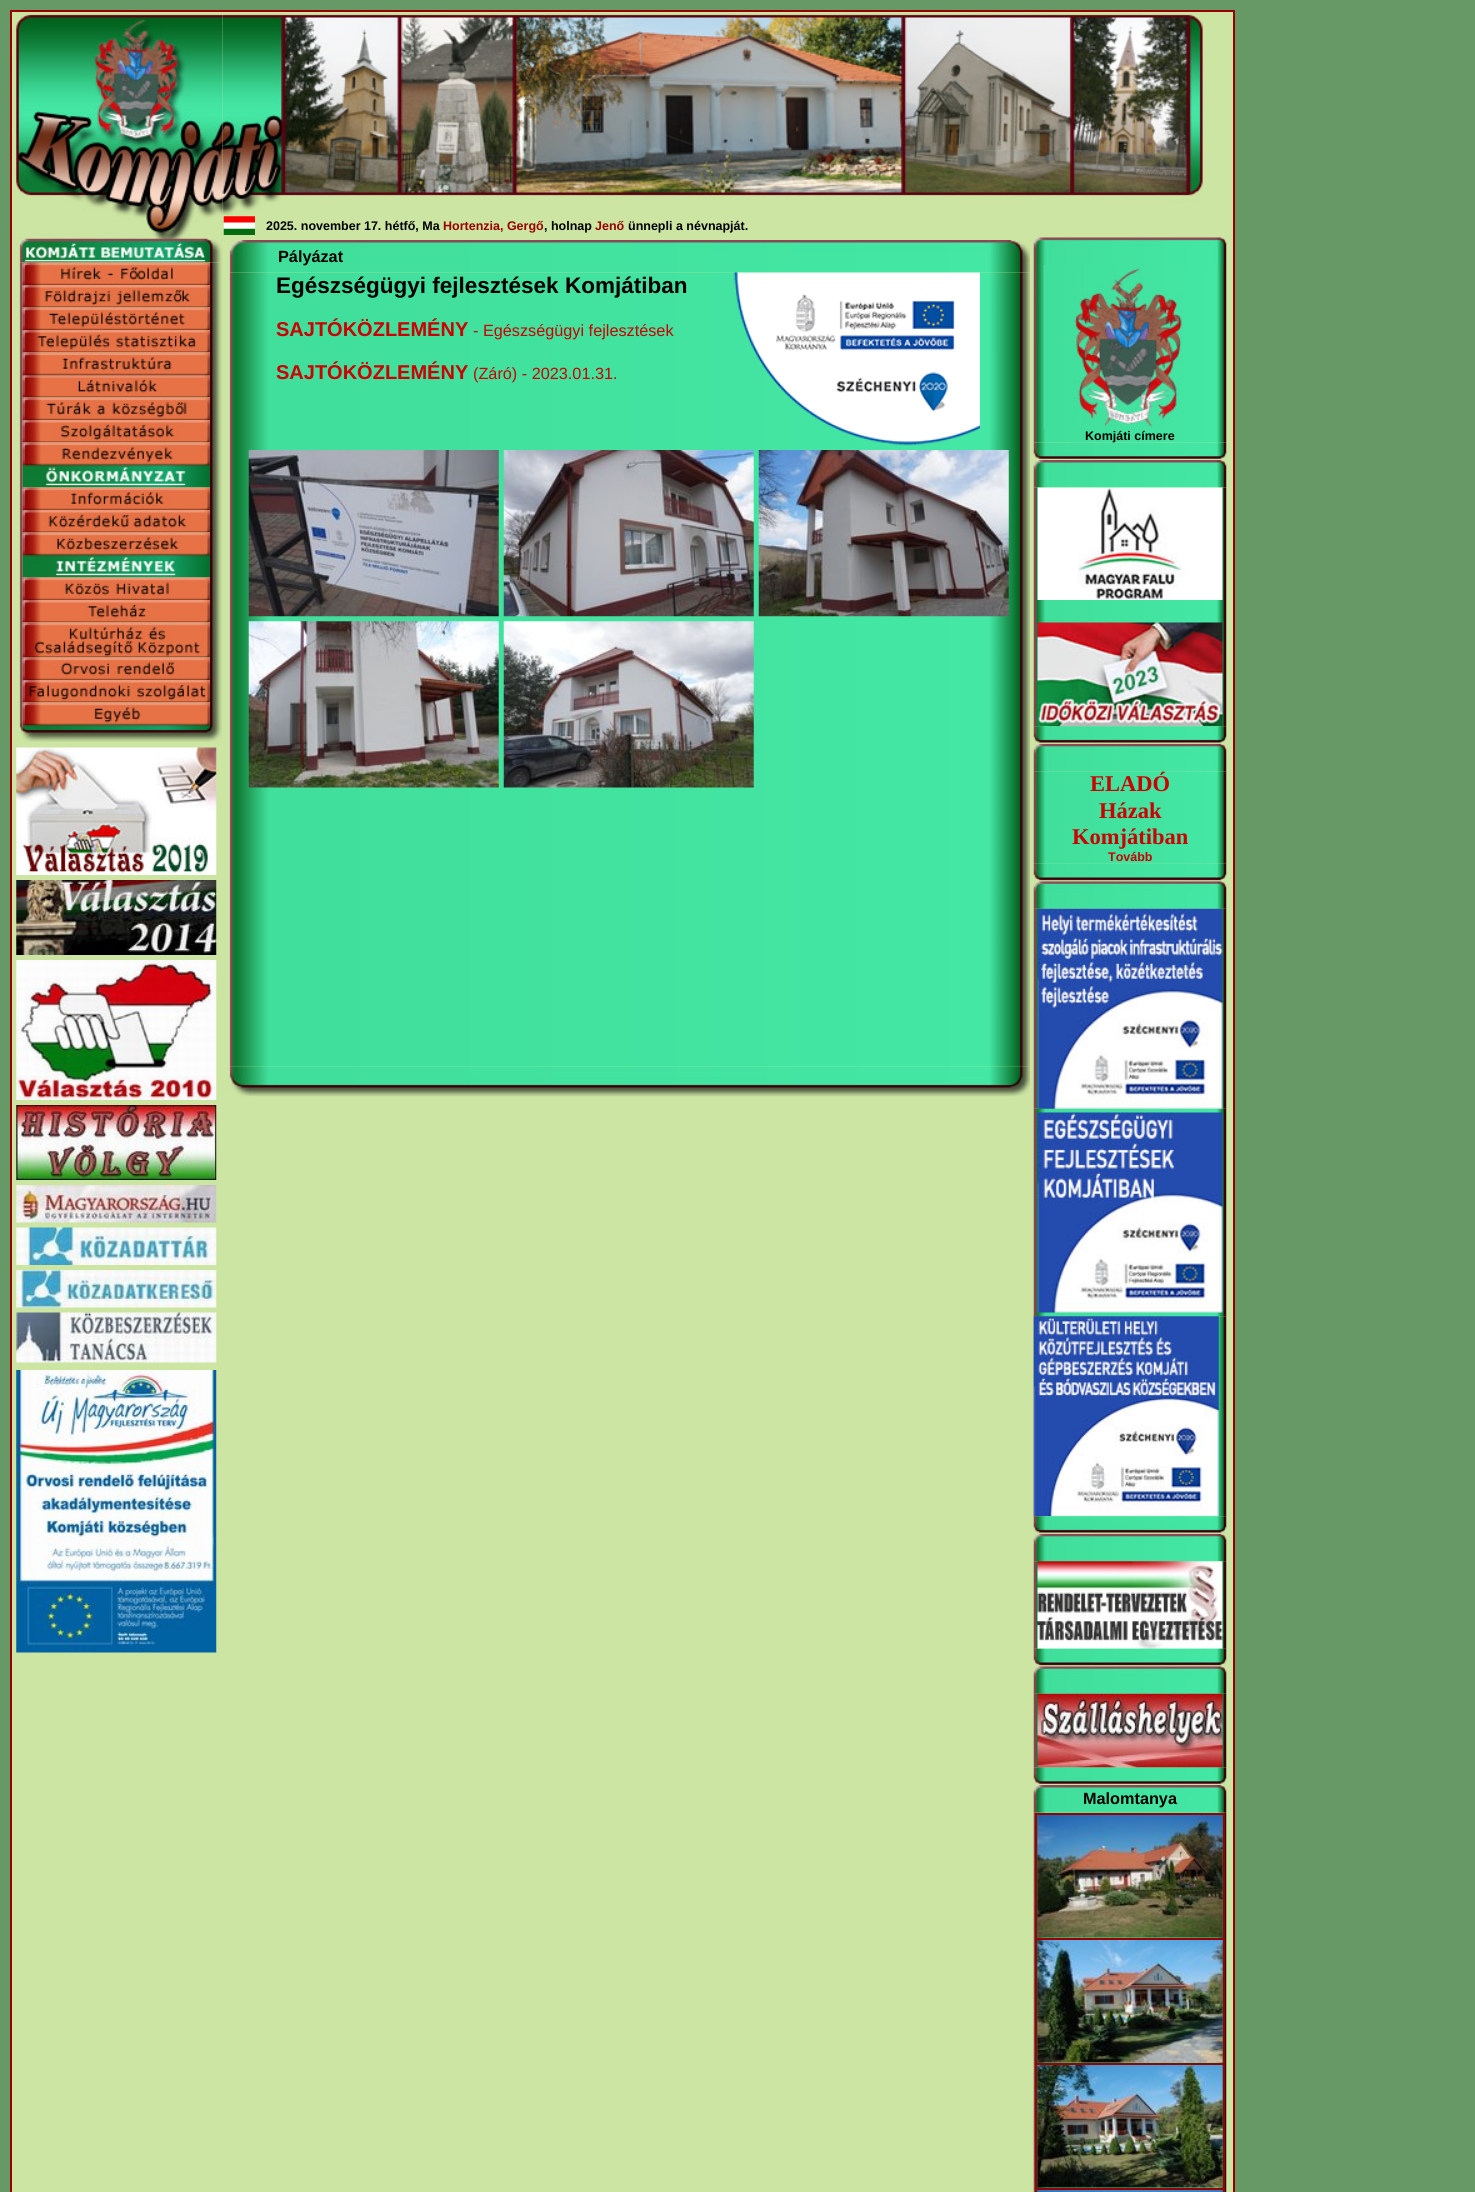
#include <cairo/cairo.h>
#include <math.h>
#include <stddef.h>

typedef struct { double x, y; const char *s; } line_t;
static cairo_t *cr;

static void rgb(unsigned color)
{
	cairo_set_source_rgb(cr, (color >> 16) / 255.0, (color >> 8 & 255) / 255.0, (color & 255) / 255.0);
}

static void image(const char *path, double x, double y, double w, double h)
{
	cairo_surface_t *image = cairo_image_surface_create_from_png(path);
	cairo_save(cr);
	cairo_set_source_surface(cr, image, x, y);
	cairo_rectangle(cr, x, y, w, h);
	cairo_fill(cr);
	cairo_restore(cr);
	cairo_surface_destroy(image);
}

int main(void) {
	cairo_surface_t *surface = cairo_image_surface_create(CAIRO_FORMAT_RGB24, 1475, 2192);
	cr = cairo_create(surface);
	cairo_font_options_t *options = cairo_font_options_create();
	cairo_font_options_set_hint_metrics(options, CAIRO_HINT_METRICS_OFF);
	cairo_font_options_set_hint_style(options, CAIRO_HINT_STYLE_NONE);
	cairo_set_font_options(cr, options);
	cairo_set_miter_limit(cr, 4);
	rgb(0x669966);
	cairo_paint(cr);
	rgb(0xcce5a3);
	cairo_rectangle(cr, 12, 12, 1221, 2180);
	cairo_fill(cr);
	cairo_rectangle(cr, 10.5, 10.5, 1224, 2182);
	rgb(0x990000);
	cairo_set_line_width(cr, 1);
	cairo_stroke(cr);
	cairo_rectangle(cr, 11.5, 11.5, 1222, 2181);
	cairo_stroke(cr);
	image("img/1.png", 12, 12, 211, 251);
	image("img/2.png", 14, 262, 9, 473);
	image("img/3.png", 22, 262, 188, 23);
	image("img/4.png", 22, 285, 188, 23);
	image("img/5.png", 22, 307, 188, 23);
	image("img/6.png", 22, 330, 188, 23);
	image("img/7.png", 22, 352, 188, 23);
	image("img/8.png", 22, 375, 188, 23);
	image("img/9.png", 22, 397, 188, 23);
	image("img/10.png", 22, 420, 188, 23);
	image("img/11.png", 22, 442, 188, 23);
	image("img/12.png", 210, 262, 12, 480);
	image("img/13.png", 22, 465, 188, 23);
	image("img/14.png", 22, 487, 188, 23);
	image("img/15.png", 22, 510, 188, 23);
	image("img/16.png", 22, 532, 188, 23);
	image("img/17.png", 22, 555, 188, 23);
	image("img/18.png", 22, 577, 188, 23);
	image("img/19.png", 22, 600, 188, 23);
	image("img/20.png", 22, 622, 188, 36);
	image("img/21.png", 22, 657, 188, 23);
	image("img/22.png", 22, 680, 188, 23);
	image("img/23.png", 22, 702, 188, 23);
	image("img/24.png", 22, 725, 188, 17);
	image("img/25.png", 16, 747, 201, 128);
	image("img/26.png", 16, 880, 201, 75);
	image("img/27.png", 16, 960, 201, 140);
	image("img/28.png", 16, 1105, 201, 75);
	image("img/29.png", 16, 1185, 201, 38);
	image("img/30.png", 16, 1227, 201, 38);
	image("img/31.png", 16, 1270, 201, 38);
	image("img/32.png", 16, 1312, 201, 51);
	image("img/33.png", 16, 1370, 201, 283);
	image("img/34.png", 222, 12, 981, 203);
	image("img/35.png", 223, 216, 32, 19);
	image("img/36.png", 228, 240, 802, 33);
	image("img/37.png", 229, 272, 801, 795);
	image("img/38.png", 733, 272, 247, 174);
	image("img/39.png", 248, 450, 251, 167);
	image("img/40.png", 503, 450, 251, 167);
	image("img/41.png", 758, 450, 251, 167);
	image("img/42.png", 248, 621, 251, 167);
	image("img/43.png", 503, 621, 251, 167);
	image("img/44.png", 226, 1066, 804, 31);
	image("img/45.png", 1033, 237, 194, 28);
	image("img/46.png", 1033, 265, 194, 178);
	image("img/47.png", 1043, 265, 141, 164);
	image("img/49.png", 1033, 460, 194, 28);
	image("img/50.png", 1033, 487, 194, 240);
	image("img/51.png", 1037, 487, 186, 113);
	image("img/52.png", 1037, 622, 186, 105);
	image("img/54.png", 1033, 743, 194, 29);
	image("img/53.png", 1033, 726, 194, 18);
	image("img/55.png", 1033, 771, 194, 93);
	image("img/57.png", 1033, 881, 194, 28);
	image("img/56.png", 1033, 863, 194, 19);
	image("img/58.png", 1033, 908, 194, 201);
	image("img/60.png", 1033, 1108, 194, 209);
	image("img/59.png", 1037, 908, 186, 201);
	image("img/61.png", 1037, 1112, 186, 201);
	image("img/62.png", 1033, 1316, 194, 201);
	image("img/63.png", 1033, 1316, 186, 201);
	image("img/54.png", 1033, 1533, 194, 29);
	image("img/64.png", 1033, 1516, 194, 18);
	image("img/65.png", 1033, 1561, 194, 88);
	image("img/66.png", 1037, 1561, 186, 88);
	image("img/57.png", 1033, 1666, 194, 28);
	image("img/67.png", 1033, 1648, 194, 19);
	image("img/68.png", 1033, 1693, 194, 75);
	image("img/69.png", 1037, 1693, 186, 75);
	image("img/70.png", 1033, 1767, 194, 18);
	image("img/49.png", 1033, 1785, 194, 28);
	image("img/71.png", 1033, 1812, 194, 380);
	cairo_rectangle(cr, 1035.5, 1813.5, 189, 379);
	cairo_stroke(cr);
	cairo_rectangle(cr, 1036.5, 1814.5, 187, 124);
	cairo_stroke(cr);
	image("img/72.png", 1037, 1815, 186, 123);
	cairo_rectangle(cr, 1036.5, 1939.5, 187, 124);
	cairo_stroke(cr);
	image("img/73.png", 1037, 1940, 186, 123);
	cairo_rectangle(cr, 1036.5, 2064.5, 187, 124);
	cairo_stroke(cr);
	image("img/74.png", 1037, 2065, 186, 123);
	cairo_rectangle(cr, 1036.5, 2189.5, 187, 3);
	cairo_stroke(cr);
	image("img/75.png", 1037, 2190, 186, 2);
	cairo_select_font_face(cr, "Liberation Sans", CAIRO_FONT_SLANT_NORMAL, CAIRO_FONT_WEIGHT_BOLD);
	cairo_set_font_size(cr, 12.5);
	rgb(0x000000);
	cairo_move_to(cr, 266, 230);
	cairo_show_text(cr, "2025. november 17. hétfő, Ma");
	rgb(0x990000);
	cairo_move_to(cr, 443, 230);
	cairo_show_text(cr, "Hortenzia, Gergő");
	rgb(0x000000);
	cairo_move_to(cr, 544, 230);
	cairo_show_text(cr, ", holnap");
	rgb(0x990000);
	cairo_move_to(cr, 595, 230);
	cairo_show_text(cr, "Jenő");
	rgb(0x000000);
	cairo_move_to(cr, 628, 230);
	cairo_show_text(cr, "ünnepli a névnapját.");
	cairo_set_font_size(cr, 16.25);
	cairo_move_to(cr, 278, 262);
	cairo_show_text(cr, "Pályázat");
	cairo_set_font_size(cr, 22.5);
	cairo_move_to(cr, 276, 293);
	cairo_show_text(cr, "Egészségügyi fejlesztések Komjátiban");
	cairo_set_font_size(cr, 20);
	rgb(0xcc0000);
	cairo_move_to(cr, 276, 336);
	cairo_show_text(cr, "SAJTÓKÖZLEMÉNY");
	cairo_select_font_face(cr, "Liberation Sans", CAIRO_FONT_SLANT_NORMAL, CAIRO_FONT_WEIGHT_NORMAL);
	cairo_set_font_size(cr, 16.25);
	cairo_move_to(cr, 473, 336);
	cairo_show_text(cr, "- Egészségügyi fejlesztések");
	cairo_select_font_face(cr, "Liberation Sans", CAIRO_FONT_SLANT_NORMAL, CAIRO_FONT_WEIGHT_BOLD);
	cairo_set_font_size(cr, 20);
	cairo_move_to(cr, 276, 379);
	cairo_show_text(cr, "SAJTÓKÖZLEMÉNY");
	cairo_select_font_face(cr, "Liberation Sans", CAIRO_FONT_SLANT_NORMAL, CAIRO_FONT_WEIGHT_NORMAL);
	cairo_set_font_size(cr, 16.25);
	cairo_move_to(cr, 473, 379);
	cairo_show_text(cr, "(Záró) - 2023.01.31.");
	cairo_select_font_face(cr, "Liberation Sans", CAIRO_FONT_SLANT_NORMAL, CAIRO_FONT_WEIGHT_BOLD);
	cairo_set_font_size(cr, 12.5);
	rgb(0x000000);
	cairo_move_to(cr, 1085, 440);
	cairo_show_text(cr, "Komjáti címere");
	image("img/48.png", 1033, 442, 194, 18);
	cairo_select_font_face(cr, "Liberation Serif", CAIRO_FONT_SLANT_NORMAL, CAIRO_FONT_WEIGHT_BOLD);
	cairo_set_font_size(cr, 22.5);
	rgb(0xcc0000);
	{
		static const line_t items[] = {
			{1090, 791, "ELADÓ"},
			{1099, 818, "Házak"},
			{1072, 844, "Komjátiban"},
		};
		for (size_t i = 0; i < sizeof items / sizeof *items; i++) {
			cairo_move_to(cr, items[i].x, items[i].y);
			cairo_show_text(cr, items[i].s);
		}
	}
	cairo_select_font_face(cr, "Liberation Sans", CAIRO_FONT_SLANT_NORMAL, CAIRO_FONT_WEIGHT_BOLD);
	cairo_set_font_size(cr, 12.5);
	cairo_move_to(cr, 1108, 861);
	cairo_show_text(cr, "Tovább");
	cairo_set_font_size(cr, 16.25);
	rgb(0x000000);
	cairo_move_to(cr, 1083, 1804);
	cairo_show_text(cr, "Malomtanya");
	cairo_surface_write_to_png(surface, "page.png");
	cairo_font_options_destroy(options);
	cairo_destroy(cr);
	cairo_surface_destroy(surface);
	return 0;
}
